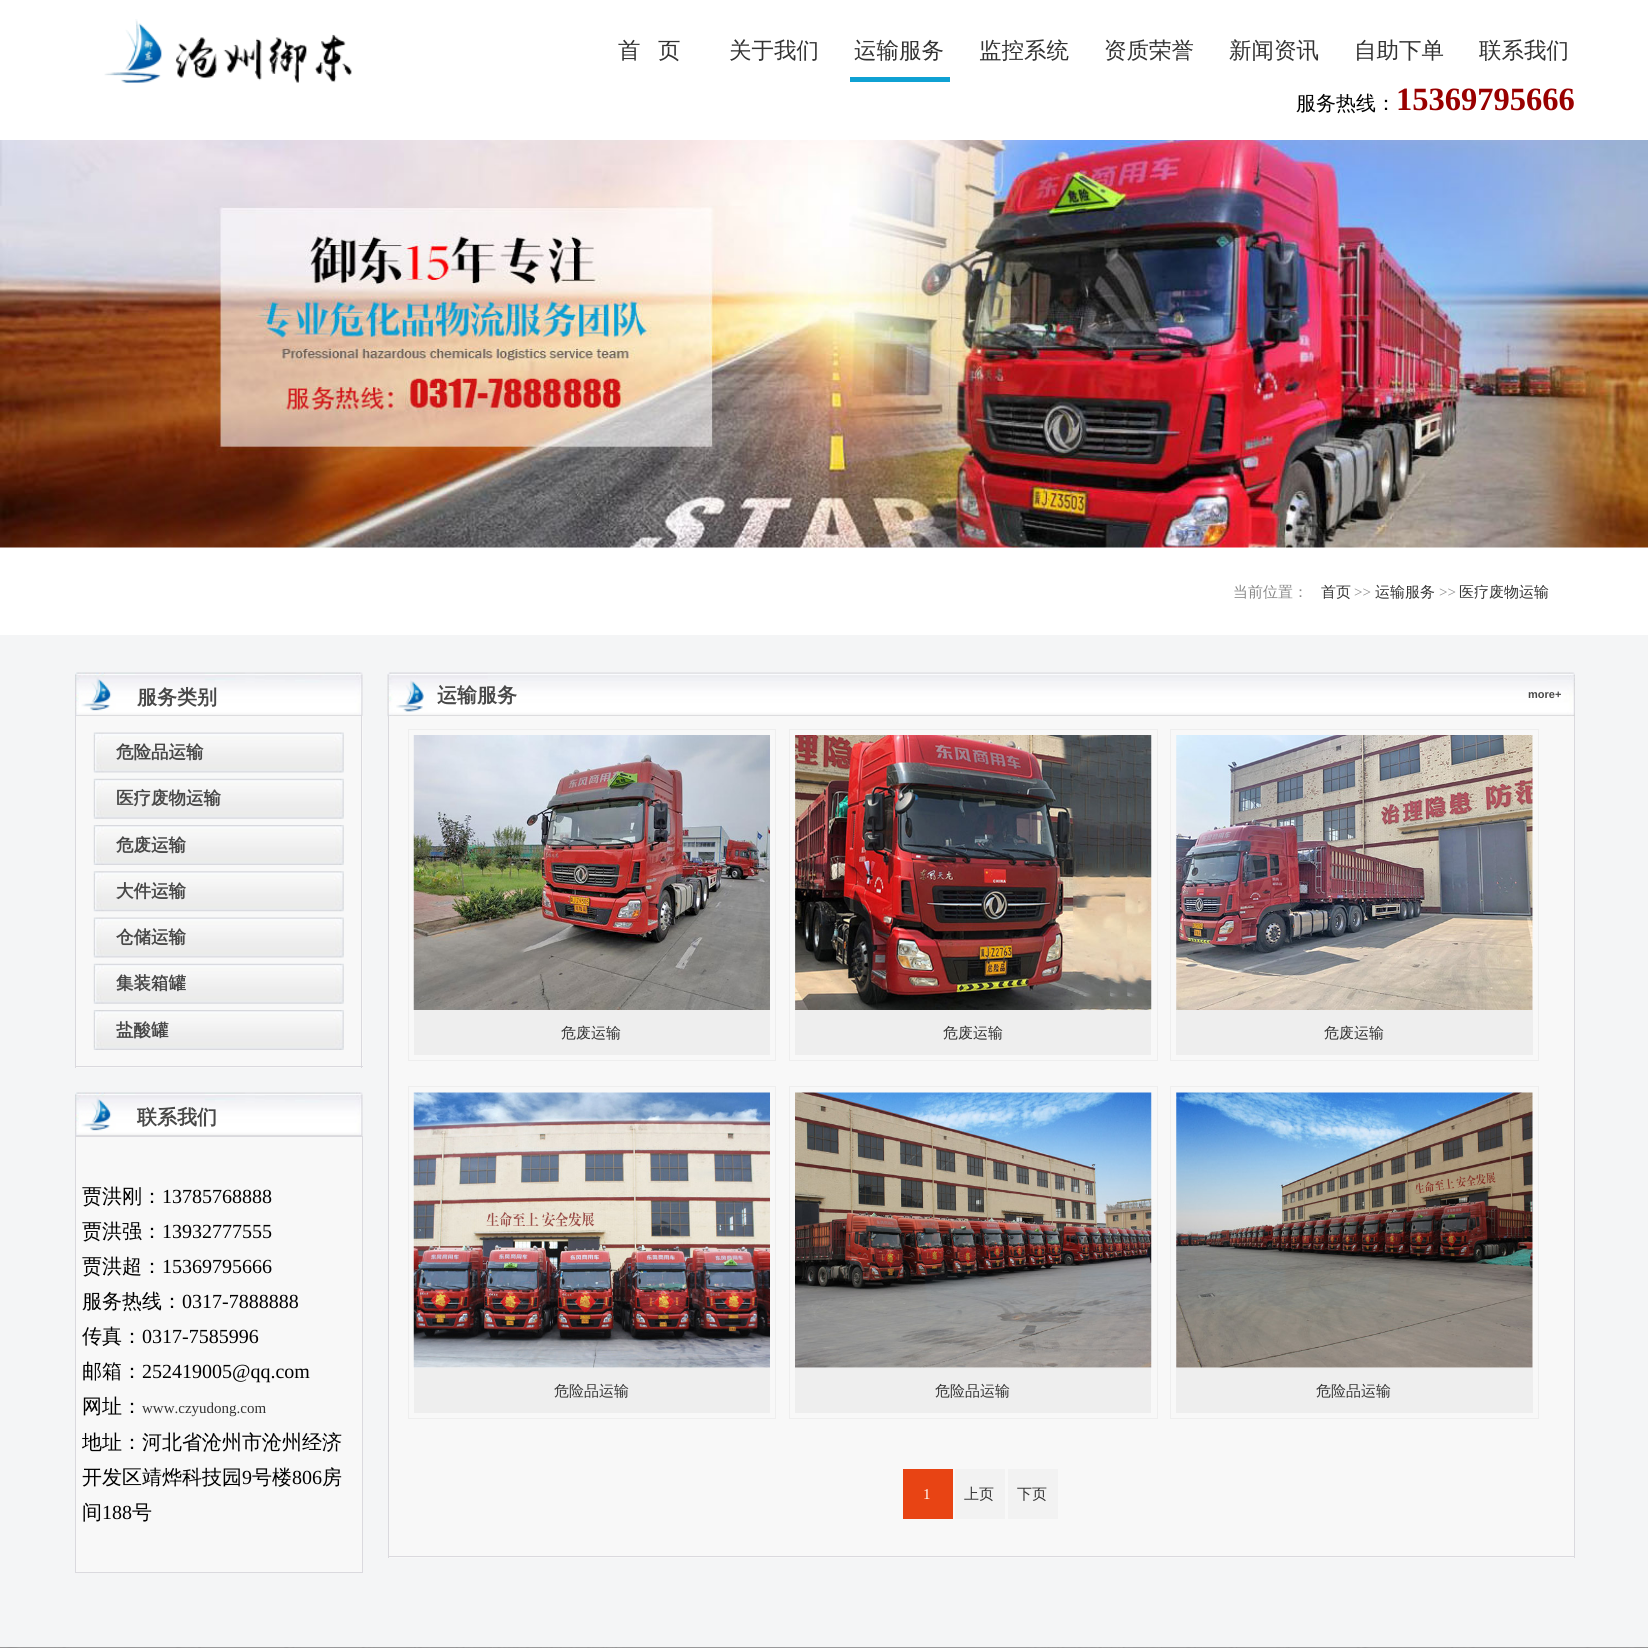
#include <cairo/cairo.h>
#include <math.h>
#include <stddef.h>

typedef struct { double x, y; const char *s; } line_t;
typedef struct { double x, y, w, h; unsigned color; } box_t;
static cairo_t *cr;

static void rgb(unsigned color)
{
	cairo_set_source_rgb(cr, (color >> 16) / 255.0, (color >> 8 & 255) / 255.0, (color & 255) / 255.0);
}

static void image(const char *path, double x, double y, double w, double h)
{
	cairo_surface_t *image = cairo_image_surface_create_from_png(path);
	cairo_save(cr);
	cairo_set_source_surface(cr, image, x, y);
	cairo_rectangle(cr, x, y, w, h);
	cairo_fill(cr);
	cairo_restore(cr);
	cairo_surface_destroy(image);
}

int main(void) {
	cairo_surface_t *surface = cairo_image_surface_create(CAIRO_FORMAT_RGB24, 1648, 1648);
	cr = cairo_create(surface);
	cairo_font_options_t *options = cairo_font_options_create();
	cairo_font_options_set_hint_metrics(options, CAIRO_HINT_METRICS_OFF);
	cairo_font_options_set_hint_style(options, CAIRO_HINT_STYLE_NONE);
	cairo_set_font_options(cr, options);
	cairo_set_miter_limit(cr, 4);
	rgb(0xffffff);
	cairo_paint(cr);
	image("img/1.png", 104, 19, 248, 64);
	rgb(0x0fa1d3);
	cairo_rectangle(cr, 850, 77, 100, 5);
	cairo_fill(cr);
	image("img/2.png", 0, 140, 1648, 408);
	rgb(0xf4f5f6);
	cairo_rectangle(cr, 0, 635, 1648, 1013);
	cairo_fill(cr);
	image("img/3.png", 75, 672, 288, 44);
	{
		static const box_t items[] = {
			{76, 716, 287, 352, 0xf8f8f8},
			{361, 716, 1, 352, 0xdad9de},
			{75, 1066, 288, 1, 0xdad9de},
			{75, 716, 1, 352, 0xdad9de},
		};
		for (size_t i = 0; i < sizeof items / sizeof *items; i++) {
			rgb(items[i].color);
			cairo_rectangle(cr, items[i].x, items[i].y, items[i].w, items[i].h);
			cairo_fill(cr);
		}
	}
	image("img/4.png", 93, 732, 251, 41);
	image("img/5.png", 93, 778, 251, 41);
	image("img/6.png", 93, 825, 251, 40);
	image("img/7.png", 93, 871, 251, 41);
	image("img/4.png", 93, 917, 251, 41);
	image("img/8.png", 93, 963, 251, 41);
	image("img/6.png", 93, 1010, 251, 40);
	image("img/3.png", 75, 1092, 288, 44);
	rgb(0xf8f8f8);
	cairo_rectangle(cr, 75.5, 1136.5, 287, 436);
	cairo_fill_preserve(cr);
	rgb(0xdad9de);
	cairo_set_line_width(cr, 1);
	cairo_stroke(cr);
	image("img/9.png", 387, 672, 1188, 45);
	{
		static const box_t items[] = {
			{389, 716, 1185, 842, 0xf8f8f8},
			{1574, 716, 1, 842, 0xdad9de},
			{388, 1556, 1187, 1, 0xdad9de},
			{388, 716, 1, 842, 0xdad9de},
		};
		for (size_t i = 0; i < sizeof items / sizeof *items; i++) {
			rgb(items[i].color);
			cairo_rectangle(cr, items[i].x, items[i].y, items[i].w, items[i].h);
			cairo_fill(cr);
		}
	}
	cairo_rectangle(cr, 408.5, 729.5, 367, 331);
	rgb(0xeeeeee);
	cairo_stroke(cr);
	image("img/10.png", 413, 735, 357, 275);
	cairo_rectangle(cr, 414, 1010, 356, 45);
	cairo_fill(cr);
	cairo_rectangle(cr, 789.5, 729.5, 368, 331);
	cairo_stroke(cr);
	image("img/11.png", 795, 735, 357, 275);
	cairo_rectangle(cr, 795, 1010, 356, 45);
	cairo_fill(cr);
	cairo_rectangle(cr, 1170.5, 729.5, 368, 331);
	cairo_stroke(cr);
	image("img/12.png", 1176, 735, 357, 275);
	cairo_rectangle(cr, 1176, 1010, 357, 45);
	cairo_fill(cr);
	cairo_rectangle(cr, 408.5, 1086.5, 367, 332);
	cairo_stroke(cr);
	image("img/13.png", 413, 1092, 357, 276);
	cairo_rectangle(cr, 414, 1368, 356, 45);
	cairo_fill(cr);
	cairo_rectangle(cr, 789.5, 1086.5, 368, 332);
	cairo_stroke(cr);
	image("img/14.png", 795, 1092, 357, 276);
	cairo_rectangle(cr, 795, 1368, 356, 45);
	cairo_fill(cr);
	cairo_rectangle(cr, 1170.5, 1086.5, 368, 332);
	cairo_stroke(cr);
	image("img/15.png", 1176, 1092, 357, 276);
	{
		static const box_t items[] = {
			{1176, 1368, 357, 45, 0xeeeeee},
			{903, 1469, 50, 50, 0xe84414},
			{955, 1469, 50, 50, 0xf2f2f2},
			{1008, 1469, 50, 50, 0xf2f2f2},
		};
		for (size_t i = 0; i < sizeof items / sizeof *items; i++) {
			rgb(items[i].color);
			cairo_rectangle(cr, items[i].x, items[i].y, items[i].w, items[i].h);
			cairo_fill(cr);
		}
	}
	image("img/16.png", 0, 1647, 1648, 1);
	cairo_select_font_face(cr, "WenQuanYi Zen Hei Medium", CAIRO_FONT_SLANT_NORMAL, CAIRO_FONT_WEIGHT_NORMAL);
	cairo_set_font_size(cr, 22.5);
	rgb(0x333333);
	{
		static const line_t items[] = {
			{618, 58, "首"},
			{658, 58, "页"},
			{729, 58, "关于我们"},
			{854, 58, "运输服务"},
			{979, 58, "监控系统"},
			{1104, 58, "资质荣誉"},
			{1229, 58, "新闻资讯"},
			{1354, 58, "自助下单"},
			{1479, 58, "联系我们"},
		};
		for (size_t i = 0; i < sizeof items / sizeof *items; i++) {
			cairo_move_to(cr, items[i].x, items[i].y);
			cairo_show_text(cr, items[i].s);
		}
	}
	cairo_set_font_size(cr, 20);
	rgb(0x000000);
	cairo_move_to(cr, 1296, 110);
	cairo_show_text(cr, "服务热线：");
	cairo_select_font_face(cr, "Liberation Serif", CAIRO_FONT_SLANT_NORMAL, CAIRO_FONT_WEIGHT_BOLD);
	cairo_set_font_size(cr, 32.5);
	rgb(0x990000);
	cairo_move_to(cr, 1396, 110);
	cairo_show_text(cr, "15369795666");
	cairo_select_font_face(cr, "WenQuanYi Zen Hei Medium", CAIRO_FONT_SLANT_NORMAL, CAIRO_FONT_WEIGHT_NORMAL);
	cairo_set_font_size(cr, 15);
	rgb(0x888888);
	cairo_move_to(cr, 1233, 597);
	cairo_show_text(cr, "当前位置：");
	rgb(0x333333);
	cairo_move_to(cr, 1321, 597);
	cairo_show_text(cr, "首页");
	cairo_select_font_face(cr, "Liberation Serif", CAIRO_FONT_SLANT_NORMAL, CAIRO_FONT_WEIGHT_NORMAL);
	rgb(0x888888);
	cairo_move_to(cr, 1354, 597);
	cairo_show_text(cr, ">>");
	cairo_select_font_face(cr, "WenQuanYi Zen Hei Medium", CAIRO_FONT_SLANT_NORMAL, CAIRO_FONT_WEIGHT_NORMAL);
	rgb(0x333333);
	cairo_move_to(cr, 1375, 597);
	cairo_show_text(cr, "运输服务");
	cairo_select_font_face(cr, "Liberation Serif", CAIRO_FONT_SLANT_NORMAL, CAIRO_FONT_WEIGHT_NORMAL);
	rgb(0x888888);
	cairo_move_to(cr, 1439, 597);
	cairo_show_text(cr, ">>");
	cairo_select_font_face(cr, "WenQuanYi Zen Hei Medium", CAIRO_FONT_SLANT_NORMAL, CAIRO_FONT_WEIGHT_NORMAL);
	rgb(0x333333);
	cairo_move_to(cr, 1459, 597);
	cairo_show_text(cr, "医疗废物运输");
	cairo_select_font_face(cr, "WenQuanYi Zen Hei", CAIRO_FONT_SLANT_NORMAL, CAIRO_FONT_WEIGHT_BOLD);
	cairo_set_font_size(cr, 20);
	rgb(0x484848);
	cairo_move_to(cr, 137, 704);
	cairo_show_text(cr, "服务类别");
	cairo_set_font_size(cr, 17.5);
	{
		static const line_t items[] = {
			{116, 758, "危险品运输"},
			{116, 804, "医疗废物运输"},
			{116, 851, "危废运输"},
			{116, 897, "大件运输"},
			{116, 943, "仓储运输"},
			{116, 989, "集装箱罐"},
			{116, 1036, "盐酸罐"},
		};
		for (size_t i = 0; i < sizeof items / sizeof *items; i++) {
			cairo_move_to(cr, items[i].x, items[i].y);
			cairo_show_text(cr, items[i].s);
		}
	}
	cairo_set_font_size(cr, 20);
	cairo_move_to(cr, 137, 1124);
	cairo_show_text(cr, "联系我们");
	cairo_select_font_face(cr, "WenQuanYi Zen Hei Medium", CAIRO_FONT_SLANT_NORMAL, CAIRO_FONT_WEIGHT_NORMAL);
	rgb(0x000000);
	cairo_move_to(cr, 82, 1203);
	cairo_show_text(cr, "贾洪刚：");
	cairo_select_font_face(cr, "Liberation Serif", CAIRO_FONT_SLANT_NORMAL, CAIRO_FONT_WEIGHT_NORMAL);
	cairo_move_to(cr, 162, 1203);
	cairo_show_text(cr, "13785768888");
	cairo_select_font_face(cr, "WenQuanYi Zen Hei Medium", CAIRO_FONT_SLANT_NORMAL, CAIRO_FONT_WEIGHT_NORMAL);
	cairo_move_to(cr, 82, 1238);
	cairo_show_text(cr, "贾洪强：");
	cairo_select_font_face(cr, "Liberation Serif", CAIRO_FONT_SLANT_NORMAL, CAIRO_FONT_WEIGHT_NORMAL);
	cairo_move_to(cr, 162, 1238);
	cairo_show_text(cr, "13932777555");
	cairo_select_font_face(cr, "WenQuanYi Zen Hei Medium", CAIRO_FONT_SLANT_NORMAL, CAIRO_FONT_WEIGHT_NORMAL);
	cairo_move_to(cr, 82, 1273);
	cairo_show_text(cr, "贾洪超：");
	cairo_select_font_face(cr, "Liberation Serif", CAIRO_FONT_SLANT_NORMAL, CAIRO_FONT_WEIGHT_NORMAL);
	cairo_move_to(cr, 162, 1273);
	cairo_show_text(cr, "15369795666");
	cairo_select_font_face(cr, "WenQuanYi Zen Hei Medium", CAIRO_FONT_SLANT_NORMAL, CAIRO_FONT_WEIGHT_NORMAL);
	cairo_move_to(cr, 82, 1308);
	cairo_show_text(cr, "服务热线：");
	cairo_select_font_face(cr, "Liberation Serif", CAIRO_FONT_SLANT_NORMAL, CAIRO_FONT_WEIGHT_NORMAL);
	cairo_move_to(cr, 182, 1308);
	cairo_show_text(cr, "0317-7888888");
	cairo_select_font_face(cr, "WenQuanYi Zen Hei Medium", CAIRO_FONT_SLANT_NORMAL, CAIRO_FONT_WEIGHT_NORMAL);
	cairo_move_to(cr, 82, 1343);
	cairo_show_text(cr, "传真：");
	cairo_select_font_face(cr, "Liberation Serif", CAIRO_FONT_SLANT_NORMAL, CAIRO_FONT_WEIGHT_NORMAL);
	cairo_move_to(cr, 142, 1343);
	cairo_show_text(cr, "0317-7585996");
	cairo_select_font_face(cr, "WenQuanYi Zen Hei Medium", CAIRO_FONT_SLANT_NORMAL, CAIRO_FONT_WEIGHT_NORMAL);
	cairo_move_to(cr, 82, 1378);
	cairo_show_text(cr, "邮箱：");
	cairo_select_font_face(cr, "Liberation Serif", CAIRO_FONT_SLANT_NORMAL, CAIRO_FONT_WEIGHT_NORMAL);
	cairo_move_to(cr, 142, 1378);
	cairo_show_text(cr, "252419005@qq.com");
	cairo_select_font_face(cr, "WenQuanYi Zen Hei Medium", CAIRO_FONT_SLANT_NORMAL, CAIRO_FONT_WEIGHT_NORMAL);
	cairo_move_to(cr, 82, 1413);
	cairo_show_text(cr, "网址：");
	cairo_select_font_face(cr, "Liberation Serif", CAIRO_FONT_SLANT_NORMAL, CAIRO_FONT_WEIGHT_NORMAL);
	cairo_set_font_size(cr, 15);
	rgb(0x333333);
	cairo_move_to(cr, 142, 1413);
	cairo_show_text(cr, "www.czyudong.com");
	cairo_select_font_face(cr, "WenQuanYi Zen Hei Medium", CAIRO_FONT_SLANT_NORMAL, CAIRO_FONT_WEIGHT_NORMAL);
	cairo_set_font_size(cr, 20);
	rgb(0x000000);
	cairo_move_to(cr, 82, 1449);
	cairo_show_text(cr, "地址：河北省沧州市沧州经济");
	cairo_move_to(cr, 82, 1484);
	cairo_show_text(cr, "开发区靖烨科技园");
	cairo_select_font_face(cr, "Liberation Serif", CAIRO_FONT_SLANT_NORMAL, CAIRO_FONT_WEIGHT_NORMAL);
	cairo_move_to(cr, 242, 1484);
	cairo_show_text(cr, "9");
	cairo_select_font_face(cr, "WenQuanYi Zen Hei Medium", CAIRO_FONT_SLANT_NORMAL, CAIRO_FONT_WEIGHT_NORMAL);
	cairo_move_to(cr, 252, 1484);
	cairo_show_text(cr, "号楼");
	cairo_select_font_face(cr, "Liberation Serif", CAIRO_FONT_SLANT_NORMAL, CAIRO_FONT_WEIGHT_NORMAL);
	cairo_move_to(cr, 292, 1484);
	cairo_show_text(cr, "806");
	cairo_select_font_face(cr, "WenQuanYi Zen Hei Medium", CAIRO_FONT_SLANT_NORMAL, CAIRO_FONT_WEIGHT_NORMAL);
	cairo_move_to(cr, 322, 1484);
	cairo_show_text(cr, "房");
	cairo_move_to(cr, 82, 1519);
	cairo_show_text(cr, "间");
	cairo_select_font_face(cr, "Liberation Serif", CAIRO_FONT_SLANT_NORMAL, CAIRO_FONT_WEIGHT_NORMAL);
	cairo_move_to(cr, 102, 1519);
	cairo_show_text(cr, "188");
	cairo_select_font_face(cr, "WenQuanYi Zen Hei Medium", CAIRO_FONT_SLANT_NORMAL, CAIRO_FONT_WEIGHT_NORMAL);
	cairo_move_to(cr, 132, 1519);
	cairo_show_text(cr, "号");
	cairo_select_font_face(cr, "WenQuanYi Zen Hei", CAIRO_FONT_SLANT_NORMAL, CAIRO_FONT_WEIGHT_BOLD);
	rgb(0x484848);
	cairo_move_to(cr, 437, 702);
	cairo_show_text(cr, "运输服务");
	cairo_select_font_face(cr, "Liberation Sans", CAIRO_FONT_SLANT_NORMAL, CAIRO_FONT_WEIGHT_BOLD);
	cairo_set_font_size(cr, 11);
	cairo_move_to(cr, 1528, 698);
	cairo_show_text(cr, "more+");
	cairo_select_font_face(cr, "WenQuanYi Zen Hei Medium", CAIRO_FONT_SLANT_NORMAL, CAIRO_FONT_WEIGHT_NORMAL);
	cairo_set_font_size(cr, 15);
	rgb(0x333333);
	{
		static const line_t items[] = {
			{561, 1038, "危废运输"},
			{943, 1038, "危废运输"},
			{1324, 1038, "危废运输"},
			{554, 1396, "危险品运输"},
			{935, 1396, "危险品运输"},
			{1316, 1396, "危险品运输"},
		};
		for (size_t i = 0; i < sizeof items / sizeof *items; i++) {
			cairo_move_to(cr, items[i].x, items[i].y);
			cairo_show_text(cr, items[i].s);
		}
	}
	cairo_select_font_face(cr, "Liberation Serif", CAIRO_FONT_SLANT_NORMAL, CAIRO_FONT_WEIGHT_NORMAL);
	rgb(0xffffff);
	cairo_move_to(cr, 923, 1499);
	cairo_show_text(cr, "1");
	cairo_select_font_face(cr, "WenQuanYi Zen Hei Medium", CAIRO_FONT_SLANT_NORMAL, CAIRO_FONT_WEIGHT_NORMAL);
	rgb(0x333333);
	cairo_move_to(cr, 964, 1499);
	cairo_show_text(cr, "上页");
	cairo_move_to(cr, 1017, 1499);
	cairo_show_text(cr, "下页");
	cairo_surface_write_to_png(surface, "page.png");
	cairo_font_options_destroy(options);
	cairo_destroy(cr);
	cairo_surface_destroy(surface);
	return 0;
}
